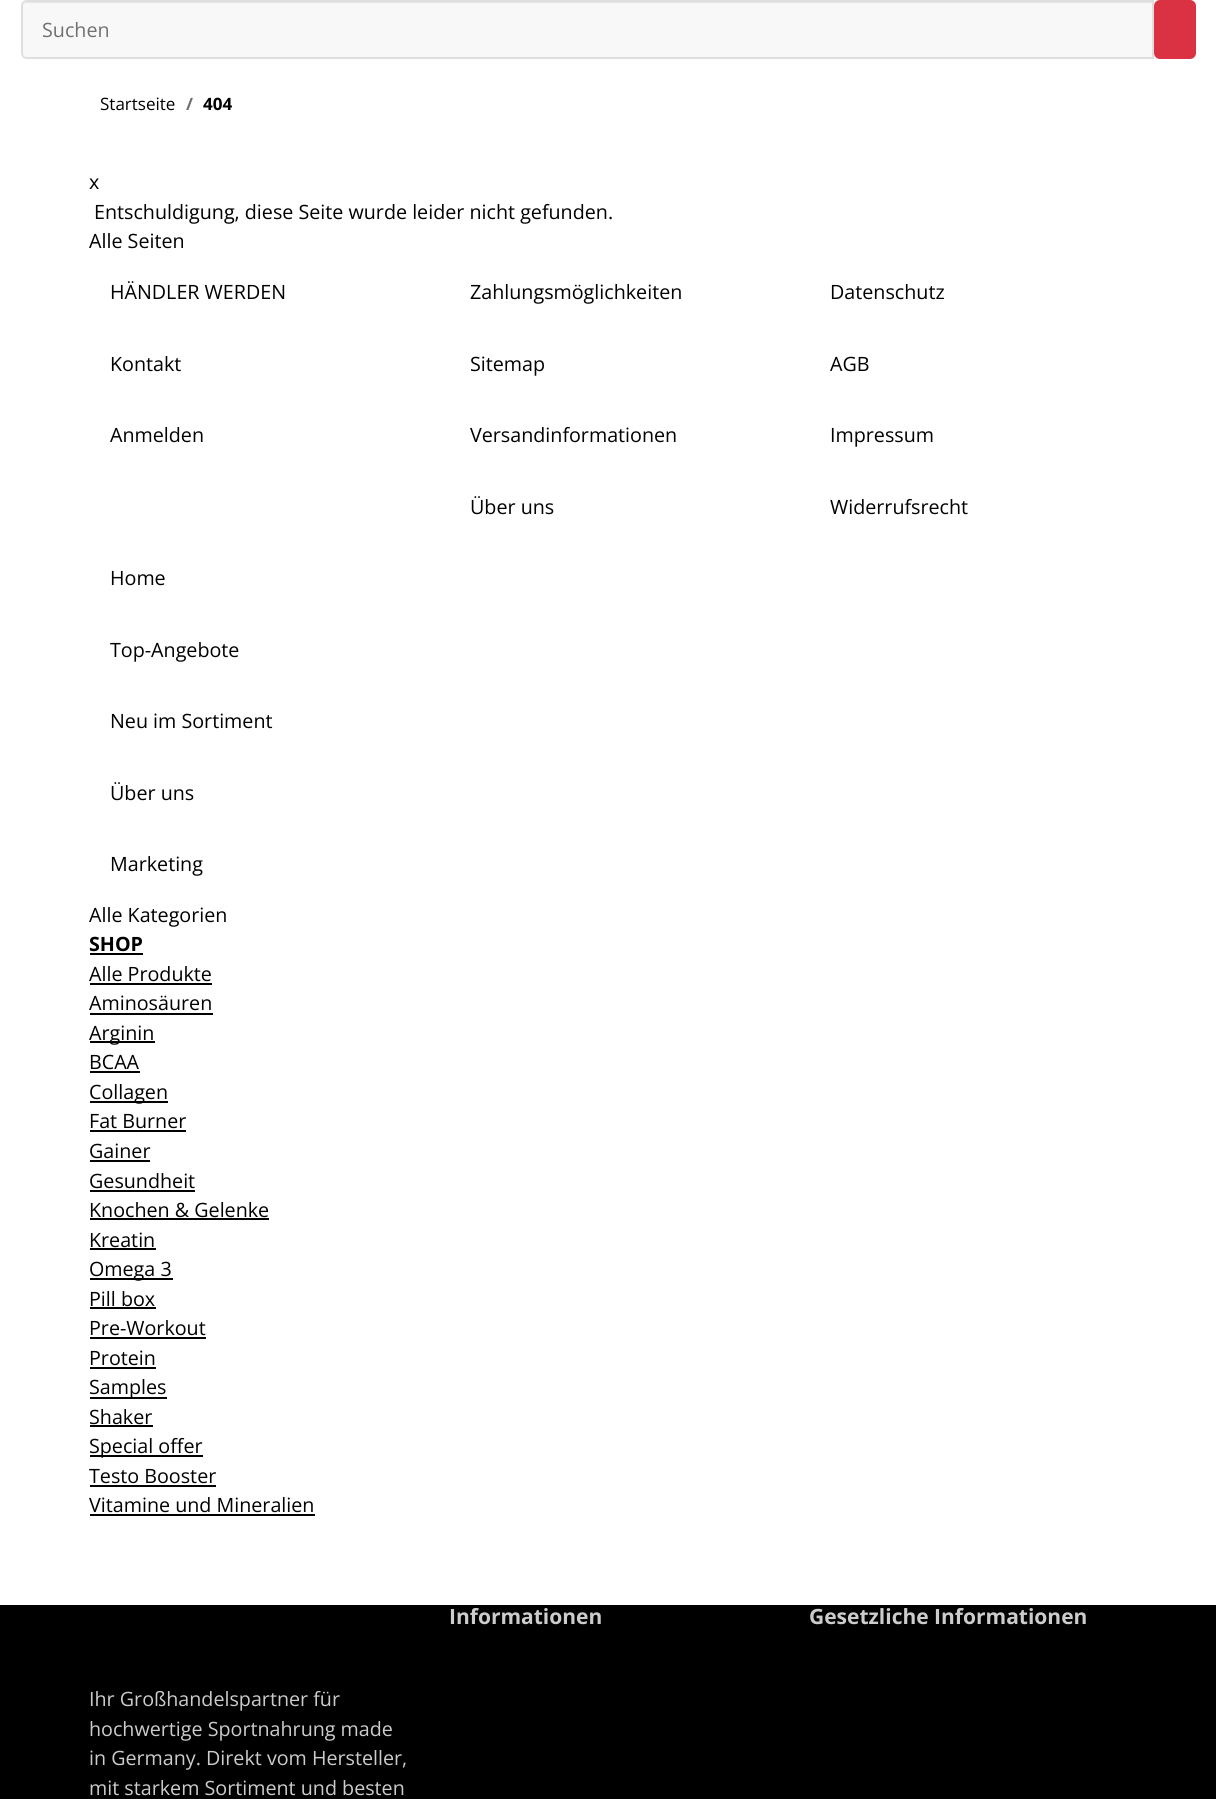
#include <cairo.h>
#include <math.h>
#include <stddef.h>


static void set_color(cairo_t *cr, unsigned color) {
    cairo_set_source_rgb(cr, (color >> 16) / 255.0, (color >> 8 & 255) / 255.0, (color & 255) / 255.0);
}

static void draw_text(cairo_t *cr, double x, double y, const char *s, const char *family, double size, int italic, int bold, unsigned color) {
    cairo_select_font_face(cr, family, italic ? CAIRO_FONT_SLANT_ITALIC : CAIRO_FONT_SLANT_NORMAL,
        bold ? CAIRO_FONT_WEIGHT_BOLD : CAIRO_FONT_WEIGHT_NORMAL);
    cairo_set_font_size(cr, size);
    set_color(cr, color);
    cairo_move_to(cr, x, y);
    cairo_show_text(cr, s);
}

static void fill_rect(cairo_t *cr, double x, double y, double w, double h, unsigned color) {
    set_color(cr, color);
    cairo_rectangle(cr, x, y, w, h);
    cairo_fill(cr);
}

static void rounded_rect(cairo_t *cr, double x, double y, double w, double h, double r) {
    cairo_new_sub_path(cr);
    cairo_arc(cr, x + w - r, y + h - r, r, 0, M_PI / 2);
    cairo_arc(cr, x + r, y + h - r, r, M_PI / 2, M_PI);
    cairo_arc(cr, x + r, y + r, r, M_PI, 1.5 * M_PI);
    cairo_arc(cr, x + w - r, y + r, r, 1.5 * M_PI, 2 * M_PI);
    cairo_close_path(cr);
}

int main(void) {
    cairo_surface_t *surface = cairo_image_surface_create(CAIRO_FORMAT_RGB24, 1216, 1799);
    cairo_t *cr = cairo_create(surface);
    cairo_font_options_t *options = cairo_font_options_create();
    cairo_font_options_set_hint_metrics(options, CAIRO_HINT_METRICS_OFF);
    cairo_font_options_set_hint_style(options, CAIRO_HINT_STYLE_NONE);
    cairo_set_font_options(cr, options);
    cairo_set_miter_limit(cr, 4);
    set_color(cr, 0xFFFFFF);
    cairo_paint(cr);
    set_color(cr, 0xF8F8F8);
    cairo_new_path(cr);
    cairo_move_to(cr, 27, 2);
    cairo_line_to(cr, 1152, 2);
    cairo_line_to(cr, 1152, 57);
    cairo_line_to(cr, 27, 57);
    cairo_curve_to(cr, 25, 57, 23, 55, 23, 53);
    cairo_line_to(cr, 23, 6);
    cairo_curve_to(cr, 23, 4, 25, 2, 27, 2);
    cairo_close_path(cr);
    cairo_fill(cr);
    set_color(cr, 0xE5E5E5);
    cairo_new_path(cr);
    cairo_move_to(cr, 26, 3);
    cairo_line_to(cr, 1152, 3);
    cairo_line_to(cr, 1152, 2);
    cairo_line_to(cr, 27, 2);
    cairo_curve_to(cr, 26, 2, 24, 3, 24, 4);
    cairo_close_path(cr);
    cairo_fill(cr);
    cairo_new_path(cr);
    cairo_move_to(cr, 27, 1);
    cairo_line_to(cr, 1153, 1);
    cairo_line_to(cr, 1153, 58);
    cairo_line_to(cr, 27, 58);
    cairo_curve_to(cr, 24, 58, 22, 56, 22, 53);
    cairo_line_to(cr, 22, 6);
    cairo_curve_to(cr, 22, 3, 24, 1, 27, 1);
    cairo_close_path(cr);
    set_color(cr, 0xDFDFDF);
    cairo_stroke(cr);
    draw_text(cr, 42, 37, "Suchen", "Open Sans", 19.7, 0, 0, 0x707070);
    set_color(cr, 0xDA3242);
    rounded_rect(cr, 1155, 1, 40, 57, 5);
    cairo_fill_preserve(cr);
    cairo_stroke(cr);
    draw_text(cr, 100, 110, "Startseite", "Open Sans", 17, 0, 0, 0x000000);
    draw_text(cr, 186, 110, "/", "Open Sans", 17, 0, 1, 0x707070);
    draw_text(cr, 203, 110, "404", "Open Sans", 17, 0, 1, 0x000000);
    draw_text(cr, 89, 189, "x", "Open Sans", 19.7, 0, 0, 0x000000);
    draw_text(cr, 94, 219, "Entschuldigung, diese Seite wurde leider nicht gefunden.", "Open Sans", 19.7, 0, 0, 0x000000);
    draw_text(cr, 89, 248, "Alle Seiten", "Open Sans", 19.7, 0, 0, 0x000000);
    draw_text(cr, 110, 299, "HÄNDLER WERDEN", "Open Sans", 19.7, 0, 0, 0x000000);
    draw_text(cr, 110, 371, "Kontakt", "Open Sans", 19.7, 0, 0, 0x000000);
    draw_text(cr, 110, 442, "Anmelden", "Open Sans", 19.7, 0, 0, 0x000000);
    draw_text(cr, 470, 299, "Zahlungsmöglichkeiten", "Open Sans", 19.7, 0, 0, 0x000000);
    draw_text(cr, 470, 371, "Sitemap", "Open Sans", 19.7, 0, 0, 0x000000);
    draw_text(cr, 470, 442, "Versandinformationen", "Open Sans", 19.7, 0, 0, 0x000000);
    draw_text(cr, 470, 514, "Über uns", "Open Sans", 19.7, 0, 0, 0x000000);
    draw_text(cr, 830, 299, "Datenschutz", "Open Sans", 19.7, 0, 0, 0x000000);
    draw_text(cr, 830, 371, "AGB", "Open Sans", 19.7, 0, 0, 0x000000);
    draw_text(cr, 830, 442, "Impressum", "Open Sans", 19.7, 0, 0, 0x000000);
    draw_text(cr, 830, 514, "Widerrufsrecht", "Open Sans", 19.7, 0, 0, 0x000000);
    draw_text(cr, 110, 585, "Home", "Open Sans", 19.7, 0, 0, 0x000000);
    draw_text(cr, 110, 657, "Top-Angebote", "Open Sans", 19.7, 0, 0, 0x000000);
    draw_text(cr, 110, 728, "Neu im Sortiment", "Open Sans", 19.7, 0, 0, 0x000000);
    draw_text(cr, 110, 800, "Über uns", "Open Sans", 19.7, 0, 0, 0x000000);
    draw_text(cr, 110, 871, "Marketing", "Open Sans", 19.7, 0, 0, 0x000000);
    draw_text(cr, 89, 922, "Alle Kategorien", "Open Sans", 19.7, 0, 0, 0x000000);
    draw_text(cr, 89, 951, "SHOP", "Open Sans", 19.7, 0, 1, 0x000000);
    fill_rect(cr, 90, 953, 53, 2, 0x000000);
    draw_text(cr, 89, 981, "Alle Produkte", "Open Sans", 19.7, 0, 0, 0x000000);
    fill_rect(cr, 90, 983, 122, 2, 0x000000);
    draw_text(cr, 89, 1010, "Aminosäuren", "Open Sans", 19.7, 0, 0, 0x000000);
    fill_rect(cr, 90, 1013, 123, 2, 0x000000);
    fill_rect(cr, 90, 1041, 65, 2, 0x000000);
    draw_text(cr, 89, 1040, "Arginin", "Open Sans", 19.7, 0, 0, 0x000000);
    draw_text(cr, 89, 1069, "BCAA", "Open Sans", 19.7, 0, 0, 0x000000);
    fill_rect(cr, 90, 1071, 50, 2, 0x000000);
    fill_rect(cr, 90, 1101, 78, 2, 0x000000);
    draw_text(cr, 89, 1099, "Collagen", "Open Sans", 19.7, 0, 0, 0x000000);
    draw_text(cr, 89, 1128, "Fat Burner", "Open Sans", 19.7, 0, 0, 0x000000);
    fill_rect(cr, 90, 1130, 96, 2, 0x000000);
    draw_text(cr, 89, 1158, "Gainer", "Open Sans", 19.7, 0, 0, 0x000000);
    fill_rect(cr, 90, 1160, 60, 2, 0x000000);
    draw_text(cr, 89, 1188, "Gesundheit", "Open Sans", 19.7, 0, 0, 0x000000);
    fill_rect(cr, 90, 1190, 105, 2, 0x000000);
    draw_text(cr, 89, 1217, "Knochen & Gelenke", "Open Sans", 19.7, 0, 0, 0x000000);
    fill_rect(cr, 90, 1218, 179, 2, 0x000000);
    draw_text(cr, 89, 1247, "Kreatin", "Open Sans", 19.7, 0, 0, 0x000000);
    fill_rect(cr, 90, 1248, 66, 2, 0x000000);
    fill_rect(cr, 90, 1278, 83, 2, 0x000000);
    draw_text(cr, 89, 1276, "Omega 3", "Open Sans", 19.7, 0, 0, 0x000000);
    draw_text(cr, 89, 1306, "Pill box", "Open Sans", 19.7, 0, 0, 0x000000);
    fill_rect(cr, 90, 1307, 66, 2, 0x000000);
    draw_text(cr, 89, 1335, "Pre-Workout", "Open Sans", 19.7, 0, 0, 0x000000);
    fill_rect(cr, 90, 1337, 116, 2, 0x000000);
    draw_text(cr, 89, 1365, "Protein", "Open Sans", 19.7, 0, 0, 0x000000);
    fill_rect(cr, 90, 1367, 66, 2, 0x000000);
    fill_rect(cr, 90, 1397, 77, 2, 0x000000);
    draw_text(cr, 89, 1394, "Samples", "Open Sans", 19.7, 0, 0, 0x000000);
    draw_text(cr, 89, 1424, "Shaker", "Open Sans", 19.7, 0, 0, 0x000000);
    fill_rect(cr, 90, 1425, 63, 2, 0x000000);
    fill_rect(cr, 90, 1455, 113, 2, 0x000000);
    draw_text(cr, 89, 1453, "Special offer", "Open Sans", 19.7, 0, 0, 0x000000);
    draw_text(cr, 89, 1483, "Testo Booster", "Open Sans", 19.7, 0, 0, 0x000000);
    fill_rect(cr, 90, 1485, 126, 2, 0x000000);
    draw_text(cr, 89, 1512, "Vitamine und Mineralien", "Open Sans", 19.7, 0, 0, 0x000000);
    fill_rect(cr, 90, 1514, 225, 2, 0x000000);
    fill_rect(cr, 0, 1605, 1216, 194, 0x000000);
    draw_text(cr, 449, 1624, "Informationen", "Open Sans", 21, 0, 1, 0xCCCCCC);
    draw_text(cr, 809, 1624, "Gesetzliche Informationen", "Open Sans", 21, 0, 1, 0xCCCCCC);
    draw_text(cr, 89, 1706, "Ihr Großhandelspartner für", "Open Sans", 19.7, 0, 0, 0xCCCCCC);
    draw_text(cr, 89, 1736, "hochwertige Sportnahrung made", "Open Sans", 19.7, 0, 0, 0xCCCCCC);
    draw_text(cr, 89, 1765, "in Germany. Direkt vom Hersteller,", "Open Sans", 19.7, 0, 0, 0xCCCCCC);
    draw_text(cr, 89, 1795, "mit starkem Sortiment und besten", "Open Sans", 19.7, 0, 0, 0xCCCCCC);
    cairo_surface_write_to_png(surface, "output.png");
    cairo_font_options_destroy(options);
    cairo_destroy(cr);
    cairo_surface_destroy(surface);
    return 0;
}
